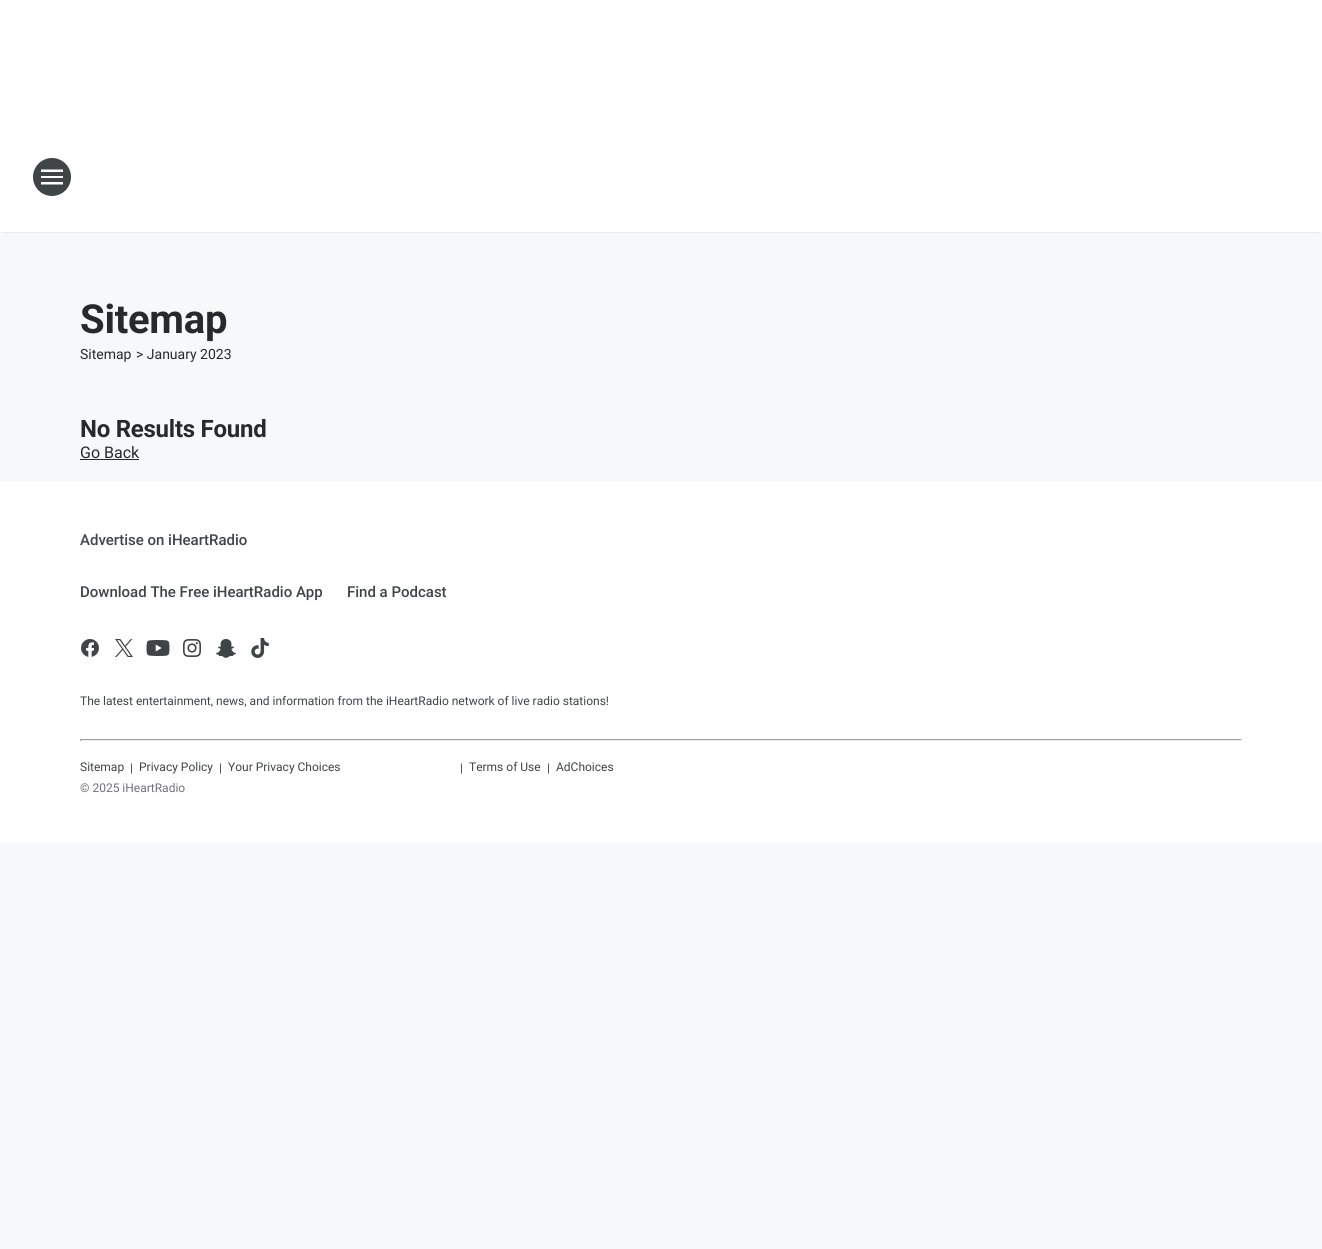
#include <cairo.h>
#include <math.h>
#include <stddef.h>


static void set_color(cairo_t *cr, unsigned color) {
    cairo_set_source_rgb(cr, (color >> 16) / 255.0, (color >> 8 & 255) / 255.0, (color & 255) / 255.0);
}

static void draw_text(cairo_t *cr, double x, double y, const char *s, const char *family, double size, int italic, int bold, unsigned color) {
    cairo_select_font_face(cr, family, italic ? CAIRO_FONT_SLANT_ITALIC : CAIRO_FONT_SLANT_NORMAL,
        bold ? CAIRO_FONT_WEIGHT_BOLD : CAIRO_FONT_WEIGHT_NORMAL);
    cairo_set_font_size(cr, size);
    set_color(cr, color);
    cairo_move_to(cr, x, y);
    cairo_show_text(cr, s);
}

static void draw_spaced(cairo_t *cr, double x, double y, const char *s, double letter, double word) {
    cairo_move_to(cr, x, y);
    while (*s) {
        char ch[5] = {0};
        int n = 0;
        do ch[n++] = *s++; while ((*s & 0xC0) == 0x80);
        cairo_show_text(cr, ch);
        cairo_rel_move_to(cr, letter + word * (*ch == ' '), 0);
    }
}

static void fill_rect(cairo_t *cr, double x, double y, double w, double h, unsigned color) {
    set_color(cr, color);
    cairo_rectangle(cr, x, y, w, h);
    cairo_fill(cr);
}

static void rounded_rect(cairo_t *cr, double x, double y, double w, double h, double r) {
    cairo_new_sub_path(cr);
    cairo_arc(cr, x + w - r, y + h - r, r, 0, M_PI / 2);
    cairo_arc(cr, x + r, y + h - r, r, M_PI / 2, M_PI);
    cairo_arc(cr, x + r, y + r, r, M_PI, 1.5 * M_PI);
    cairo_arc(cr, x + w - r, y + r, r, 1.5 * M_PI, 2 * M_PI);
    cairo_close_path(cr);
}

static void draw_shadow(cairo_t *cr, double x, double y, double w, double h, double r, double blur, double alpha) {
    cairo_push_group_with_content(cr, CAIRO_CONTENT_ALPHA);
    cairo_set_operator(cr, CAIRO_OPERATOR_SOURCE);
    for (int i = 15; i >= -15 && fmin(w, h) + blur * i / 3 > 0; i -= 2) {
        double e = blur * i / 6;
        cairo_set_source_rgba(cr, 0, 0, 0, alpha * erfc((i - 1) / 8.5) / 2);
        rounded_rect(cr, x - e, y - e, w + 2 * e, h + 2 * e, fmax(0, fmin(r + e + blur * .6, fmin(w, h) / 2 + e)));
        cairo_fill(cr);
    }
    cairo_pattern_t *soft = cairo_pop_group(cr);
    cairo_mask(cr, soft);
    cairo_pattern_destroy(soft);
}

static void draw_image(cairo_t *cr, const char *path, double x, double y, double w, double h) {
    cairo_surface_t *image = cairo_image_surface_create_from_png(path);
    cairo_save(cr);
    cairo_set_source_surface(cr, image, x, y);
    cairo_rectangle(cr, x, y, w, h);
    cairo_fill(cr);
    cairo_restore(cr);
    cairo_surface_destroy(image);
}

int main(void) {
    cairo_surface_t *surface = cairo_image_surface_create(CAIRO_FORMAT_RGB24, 1322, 1249);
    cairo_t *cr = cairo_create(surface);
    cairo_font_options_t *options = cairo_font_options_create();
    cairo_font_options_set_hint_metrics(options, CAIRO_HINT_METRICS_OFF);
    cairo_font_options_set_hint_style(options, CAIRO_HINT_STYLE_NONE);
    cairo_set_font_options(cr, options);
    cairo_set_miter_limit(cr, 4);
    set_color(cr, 0xF6F8F9);
    cairo_paint(cr);
    fill_rect(cr, 0, 0, 1322, 122, 0xFFFFFF);
    set_color(cr, 0x000000);
    draw_shadow(cr, 3, 126, 1316, 104, 0, 1.5, 1);
    fill_rect(cr, 0, 122, 1322, 110, 0xFFFFFF);
    set_color(cr, 0x3F4447);
    cairo_arc(cr, 52, 177, 19, 0, 2 * M_PI);
    cairo_fill(cr);
    set_color(cr, 0xFFFFFF);
    cairo_set_fill_rule(cr, CAIRO_FILL_RULE_EVEN_ODD);
    cairo_new_path(cr);
    cairo_move_to(cr, 41, 184.5);
    cairo_line_to(cr, 63, 184.5);
    cairo_line_to(cr, 63, 182);
    cairo_line_to(cr, 41, 182);
    cairo_close_path(cr);
    cairo_move_to(cr, 41, 178);
    cairo_line_to(cr, 63, 178);
    cairo_line_to(cr, 63, 176);
    cairo_line_to(cr, 41, 176);
    cairo_close_path(cr);
    cairo_move_to(cr, 41, 169.5);
    cairo_line_to(cr, 41, 172);
    cairo_line_to(cr, 63, 172);
    cairo_line_to(cr, 63, 169.5);
    cairo_close_path(cr);
    cairo_fill(cr);
    cairo_select_font_face(cr, "Roboto", CAIRO_FONT_SLANT_NORMAL, CAIRO_FONT_WEIGHT_BOLD);
    cairo_set_font_size(cr, 40);
    set_color(cr, 0x27292D);
    draw_spaced(cr, 80, 333, "Sitemap", -0.25, 0);
    draw_text(cr, 80, 359, "Sitemap", "Roboto", 14, 0, 0, 0x27292D);
    draw_text(cr, 136, 359, "> January 2023", "Roboto", 14, 0, 0, 0x27292D);
    cairo_select_font_face(cr, "Roboto", CAIRO_FONT_SLANT_NORMAL, CAIRO_FONT_WEIGHT_BOLD);
    cairo_set_font_size(cr, 24);
    draw_spaced(cr, 80, 437, "No Results Found", -0.25, 0);
    draw_text(cr, 80, 458, "Go Back", "Roboto", 16, 0, 0, 0x27292D);
    fill_rect(cr, 80, 459, 59, 1, 0x27292D);
    fill_rect(cr, 0, 482, 1322, 361, 0xFFFFFF);
    draw_text(cr, 80, 545, "Advertise on iHeartRadio", "Roboto Medium", 15, 0, 0, 0x3F4447);
    draw_text(cr, 80, 597, "Download The Free iHeartRadio App", "Roboto Medium", 15, 0, 0, 0x3F4447);
    draw_text(cr, 347, 597, "Find a Podcast", "Roboto Medium", 15, 0, 0, 0x3F4447);
    draw_image(cr, "assets/img1.png", 81, 639, 18, 18);
    draw_image(cr, "assets/img2.png", 115, 639, 18, 18);
    draw_image(cr, "assets/img3.png", 146, 640, 24, 16);
    draw_image(cr, "assets/img4.png", 183, 639, 18, 18);
    draw_image(cr, "assets/img5.png", 216, 639, 20, 19);
    draw_image(cr, "assets/img6.png", 251, 638, 18, 20);
    draw_text(cr, 80, 705, "The latest entertainment, news, and information from the iHeartRadio network of live radio stations!", "Roboto", 12, 0, 0, 0x3F4447);
    fill_rect(cr, 80, 739, 1162, 1, 0x9F9F9F);
    fill_rect(cr, 1241, 739, 1, 2, 0xEEEEEE);
    fill_rect(cr, 80, 740, 1162, 1, 0xEEEEEE);
    fill_rect(cr, 80, 739, 1, 2, 0x9F9F9F);
    draw_text(cr, 80, 771, "Sitemap", "Roboto", 12, 0, 0, 0x3F4447);
    draw_text(cr, 130, 772, "|", "Roboto", 12, 0, 0, 0x3F4447);
    draw_text(cr, 139, 771, "Privacy Policy", "Roboto", 12, 0, 0, 0x3F4447);
    draw_text(cr, 219, 772, "|", "Roboto", 12, 0, 0, 0x3F4447);
    draw_text(cr, 228, 771, "Your Privacy Choices", "Roboto", 12, 0, 0, 0x3F4447);
    draw_text(cr, 460, 772, "|", "Roboto", 12, 0, 0, 0x3F4447);
    draw_text(cr, 469, 771, "Terms of Use", "Roboto", 12, 0, 0, 0x3F4447);
    draw_text(cr, 547, 772, "|", "Roboto", 12, 0, 0, 0x3F4447);
    draw_text(cr, 556, 771, "AdChoices", "Roboto", 12, 0, 0, 0x3F4447);
    draw_text(cr, 80, 792, "© 2025 iHeartRadio", "Roboto", 12, 0, 0, 0x717277);
    cairo_surface_write_to_png(surface, "output.png");
    cairo_font_options_destroy(options);
    cairo_destroy(cr);
    cairo_surface_destroy(surface);
    return 0;
}
